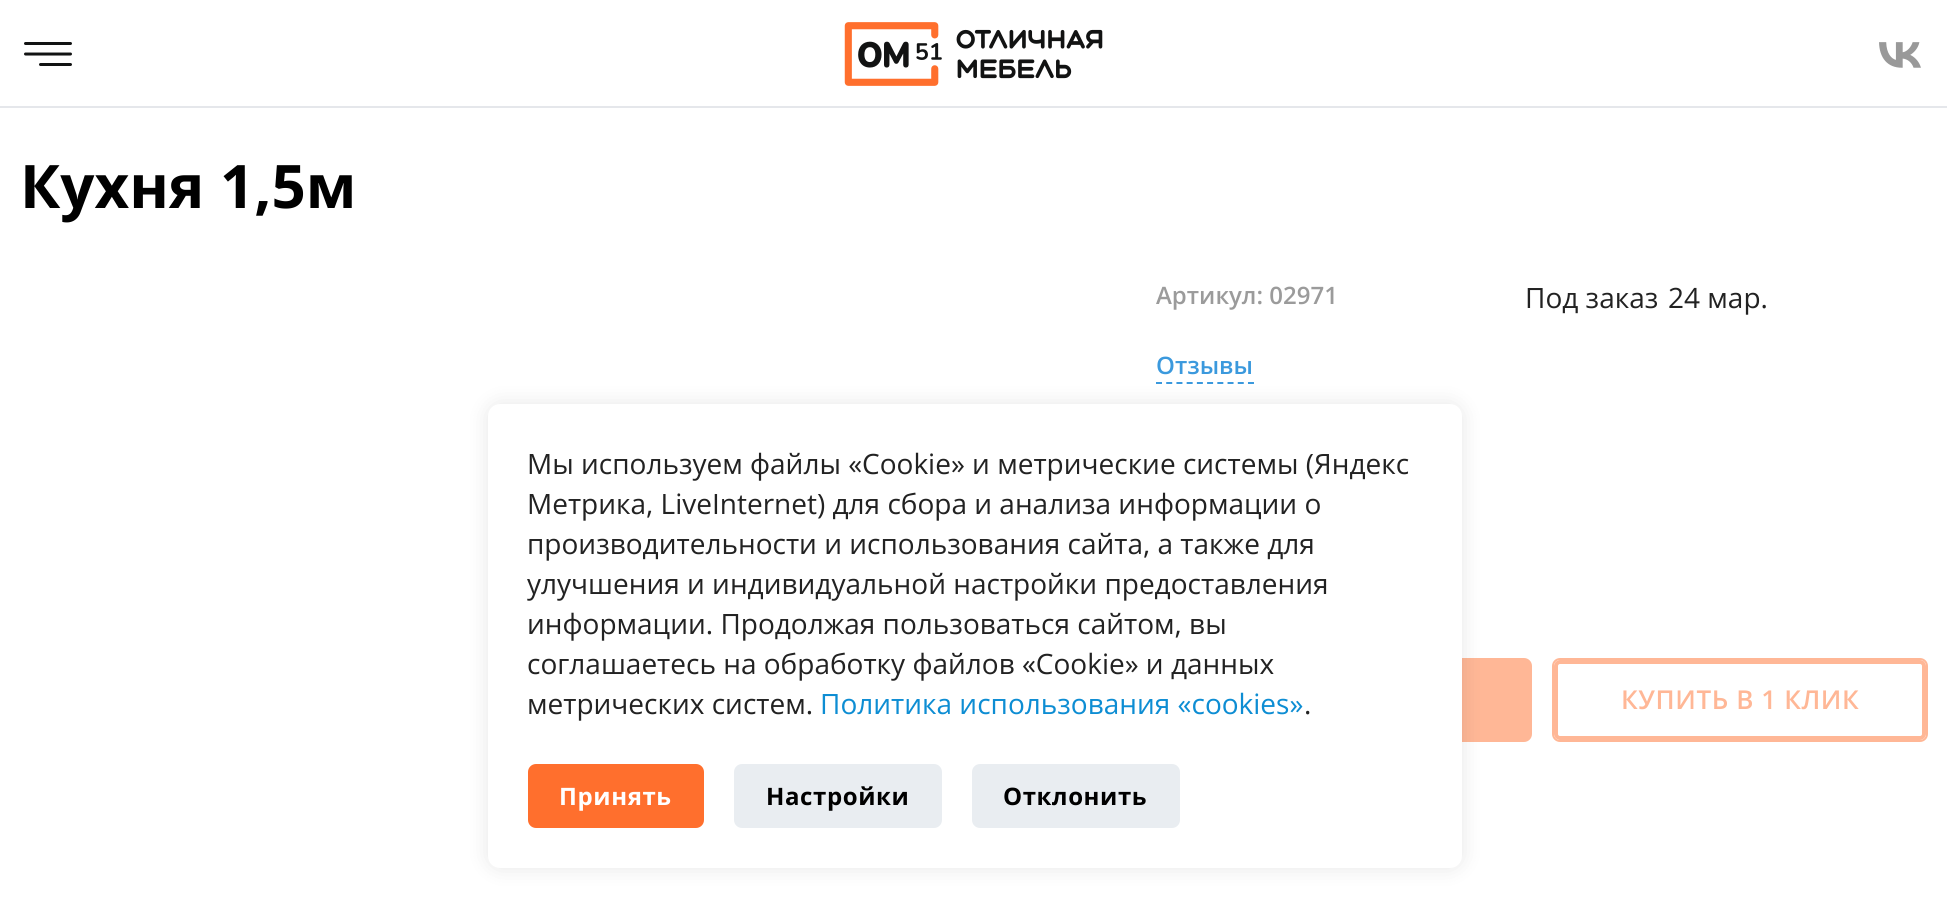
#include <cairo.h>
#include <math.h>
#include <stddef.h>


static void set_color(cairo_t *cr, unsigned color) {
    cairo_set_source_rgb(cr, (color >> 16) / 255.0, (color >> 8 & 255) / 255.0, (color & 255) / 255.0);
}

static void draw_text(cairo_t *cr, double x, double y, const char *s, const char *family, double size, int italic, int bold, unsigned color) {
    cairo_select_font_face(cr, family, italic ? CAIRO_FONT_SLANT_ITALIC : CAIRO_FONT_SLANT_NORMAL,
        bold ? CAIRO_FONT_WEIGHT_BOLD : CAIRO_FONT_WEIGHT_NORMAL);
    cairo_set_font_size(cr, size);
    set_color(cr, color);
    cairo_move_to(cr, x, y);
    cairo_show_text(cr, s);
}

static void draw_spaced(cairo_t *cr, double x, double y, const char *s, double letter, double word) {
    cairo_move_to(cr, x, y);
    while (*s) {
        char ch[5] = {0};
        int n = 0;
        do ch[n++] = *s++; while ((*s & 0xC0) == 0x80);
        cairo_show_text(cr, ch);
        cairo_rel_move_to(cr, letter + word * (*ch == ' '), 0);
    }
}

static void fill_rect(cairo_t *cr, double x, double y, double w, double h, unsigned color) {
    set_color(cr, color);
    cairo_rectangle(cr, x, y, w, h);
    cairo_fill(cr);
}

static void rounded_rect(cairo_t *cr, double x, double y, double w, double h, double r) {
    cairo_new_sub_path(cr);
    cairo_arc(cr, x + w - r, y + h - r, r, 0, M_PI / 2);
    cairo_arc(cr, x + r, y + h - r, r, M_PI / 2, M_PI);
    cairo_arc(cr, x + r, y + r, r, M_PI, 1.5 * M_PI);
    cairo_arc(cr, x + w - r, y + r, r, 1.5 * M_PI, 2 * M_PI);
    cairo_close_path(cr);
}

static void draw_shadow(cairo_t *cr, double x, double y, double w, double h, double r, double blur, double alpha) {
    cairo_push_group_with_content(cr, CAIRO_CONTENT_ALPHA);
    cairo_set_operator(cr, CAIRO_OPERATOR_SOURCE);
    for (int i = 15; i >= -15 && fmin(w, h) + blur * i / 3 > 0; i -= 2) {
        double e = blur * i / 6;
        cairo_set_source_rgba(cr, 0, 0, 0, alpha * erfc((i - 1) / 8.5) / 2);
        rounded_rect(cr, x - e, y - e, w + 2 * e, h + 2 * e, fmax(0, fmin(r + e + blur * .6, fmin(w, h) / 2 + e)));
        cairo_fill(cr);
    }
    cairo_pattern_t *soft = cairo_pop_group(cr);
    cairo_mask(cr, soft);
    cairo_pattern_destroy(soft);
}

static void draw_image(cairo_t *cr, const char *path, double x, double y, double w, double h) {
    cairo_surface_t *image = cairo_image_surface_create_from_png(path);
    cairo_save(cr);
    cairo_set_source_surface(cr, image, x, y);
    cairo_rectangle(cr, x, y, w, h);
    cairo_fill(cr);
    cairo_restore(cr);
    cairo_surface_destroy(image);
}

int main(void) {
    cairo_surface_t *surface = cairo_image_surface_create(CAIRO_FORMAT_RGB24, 1947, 907);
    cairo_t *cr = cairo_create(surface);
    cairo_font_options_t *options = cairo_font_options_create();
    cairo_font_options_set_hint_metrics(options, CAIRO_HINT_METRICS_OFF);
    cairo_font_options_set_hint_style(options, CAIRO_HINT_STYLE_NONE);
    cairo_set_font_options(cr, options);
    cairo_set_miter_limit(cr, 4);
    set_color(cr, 0xFFFFFF);
    cairo_paint(cr);
    fill_rect(cr, 0, 106, 1947, 2, 0xE5E7EB);
    draw_image(cr, "assets/img1.png", 24, 42, 48, 24);
    draw_image(cr, "assets/img2.png", 844, 22, 259, 64);
    draw_image(cr, "assets/img3.png", 1879, 42, 42, 26);
    draw_text(cr, 20, 208, "Кухня 1,5м", "Open Sans", 60, 0, 1, 0x000000);
    draw_text(cr, 1156, 304, "Артикул: 02971", "Open Sans SemiBold", 24, 0, 0, 0x9B9B9B);
    draw_text(cr, 1525, 308, "Под заказ", "Open Sans", 28, 0, 0, 0x222222);
    draw_text(cr, 1668, 308, "24 мар.", "Open Sans", 28, 0, 0, 0x222222);
    draw_text(cr, 1156, 374, "Отзывы", "Open Sans SemiBold", 24, 0, 0, 0x3B99DD);
    cairo_new_path(cr);
    cairo_move_to(cr, 1156, 383);
    cairo_line_to(cr, 1254, 383);
    cairo_set_dash(cr, (double[]){6, 4.22}, 2, 0);
    cairo_stroke(cr);
    set_color(cr, 0xFFB796);
    rounded_rect(cr, 1157, 659, 374, 82, 7);
    cairo_fill_preserve(cr);
    cairo_set_dash(cr, NULL, 0, 0);
    cairo_stroke(cr);
    rounded_rect(cr, 1553, 659, 374, 82, 7);
    cairo_stroke(cr);
    rounded_rect(cr, 1556, 662, 368, 76, 4);
    cairo_set_line_width(cr, 4);
    cairo_stroke(cr);
    cairo_set_font_size(cr, 26);
    draw_spaced(cr, 1621, 709, "КУПИТЬ В 1 КЛИК", 0.6, 0);
    set_color(cr, 0x000000);
    draw_shadow(cr, 488, 404, 974, 464, 12, 10, 0.1);
    set_color(cr, 0xFFFFFF);
    rounded_rect(cr, 488, 404, 974, 464, 12);
    cairo_fill(cr);
    draw_text(cr, 527, 474, "Мы используем файлы «Cookie» и метрические системы (Яндекс", "Open Sans", 28, 0, 0, 0x222222);
    draw_text(cr, 527, 514, "Метрика, LiveInternet) для сбора и анализа информации о", "Open Sans", 28, 0, 0, 0x222222);
    draw_text(cr, 527, 554, "производительности и использования сайта, а также для", "Open Sans", 28, 0, 0, 0x222222);
    draw_text(cr, 527, 594, "улучшения и индивидуальной настройки предоставления", "Open Sans", 28, 0, 0, 0x222222);
    draw_text(cr, 527, 634, "информации. Продолжая пользоваться сайтом, вы", "Open Sans", 28, 0, 0, 0x222222);
    draw_text(cr, 527, 674, "соглашаетесь на обработку файлов «Cookie» и данных", "Open Sans", 28, 0, 0, 0x222222);
    draw_text(cr, 527, 714, "метрических систем.", "Open Sans", 28, 0, 0, 0x222222);
    draw_text(cr, 820, 714, "Политика использования «cookies»", "Open Sans", 28, 0, 0, 0x0D8DD3);
    draw_text(cr, 1304, 714, ".", "Open Sans", 28, 0, 0, 0x222222);
    set_color(cr, 0xFF6F2D);
    rounded_rect(cr, 529, 765, 174, 62, 7);
    cairo_fill_preserve(cr);
    cairo_set_line_width(cr, 2);
    cairo_stroke(cr);
    cairo_select_font_face(cr, "Open Sans", CAIRO_FONT_SLANT_NORMAL, CAIRO_FONT_WEIGHT_BOLD);
    cairo_set_font_size(cr, 24);
    set_color(cr, 0xFFFFFF);
    draw_spaced(cr, 559, 805, "Принять", 0.6, 0);
    set_color(cr, 0xE9EDF1);
    rounded_rect(cr, 735, 765, 206, 62, 7);
    cairo_fill_preserve(cr);
    cairo_stroke(cr);
    set_color(cr, 0x000000);
    draw_spaced(cr, 766, 805, "Настройки", 0.6, 0);
    set_color(cr, 0xE9EDF1);
    rounded_rect(cr, 973, 765, 206, 62, 7);
    cairo_fill_preserve(cr);
    cairo_stroke(cr);
    set_color(cr, 0x000000);
    draw_spaced(cr, 1003, 805, "Отклонить", 0.6, 0);
    cairo_surface_write_to_png(surface, "output.png");
    cairo_font_options_destroy(options);
    cairo_destroy(cr);
    cairo_surface_destroy(surface);
    return 0;
}
